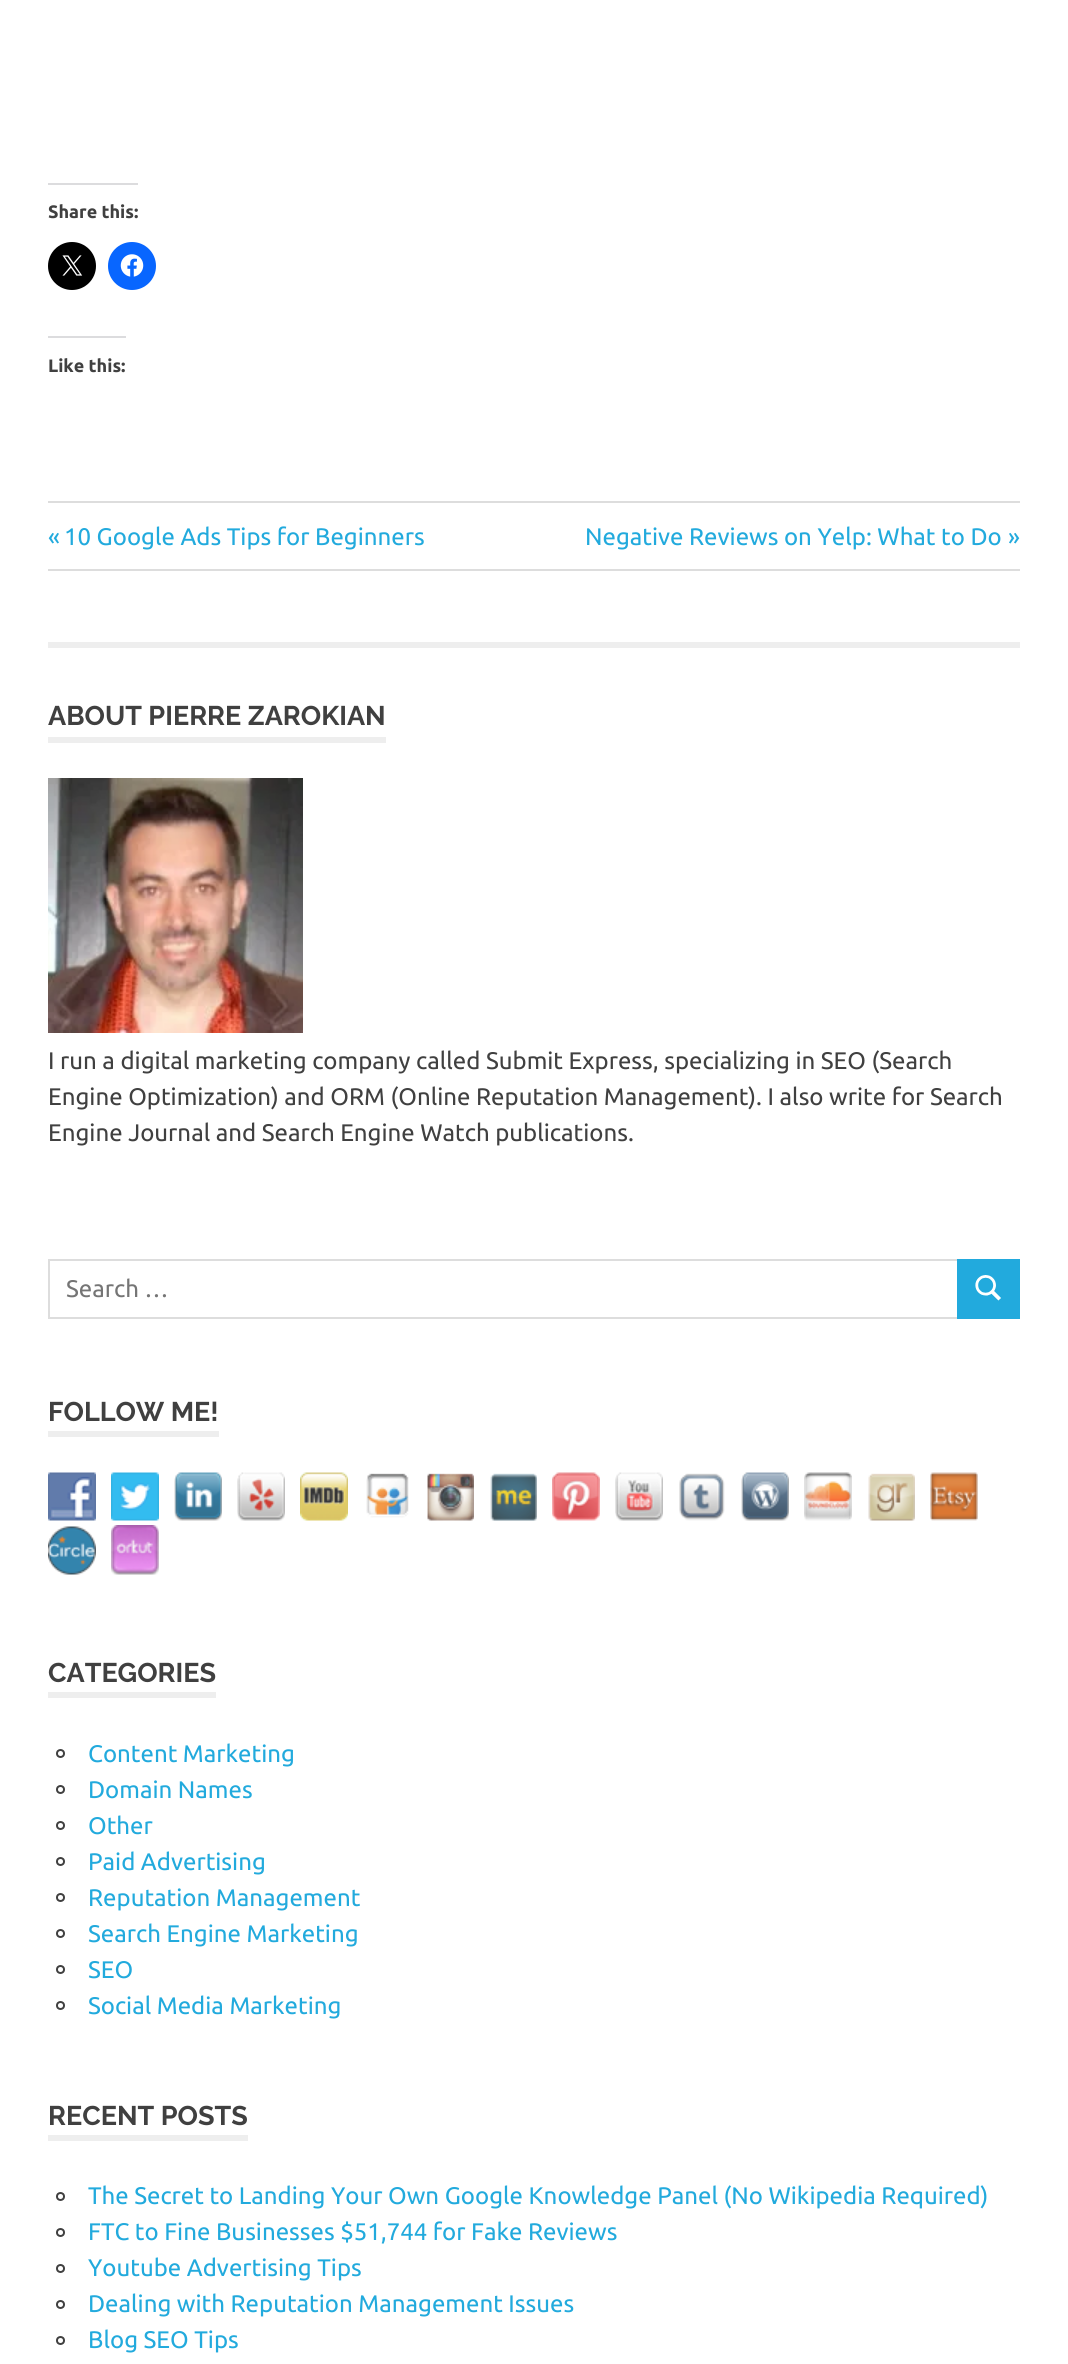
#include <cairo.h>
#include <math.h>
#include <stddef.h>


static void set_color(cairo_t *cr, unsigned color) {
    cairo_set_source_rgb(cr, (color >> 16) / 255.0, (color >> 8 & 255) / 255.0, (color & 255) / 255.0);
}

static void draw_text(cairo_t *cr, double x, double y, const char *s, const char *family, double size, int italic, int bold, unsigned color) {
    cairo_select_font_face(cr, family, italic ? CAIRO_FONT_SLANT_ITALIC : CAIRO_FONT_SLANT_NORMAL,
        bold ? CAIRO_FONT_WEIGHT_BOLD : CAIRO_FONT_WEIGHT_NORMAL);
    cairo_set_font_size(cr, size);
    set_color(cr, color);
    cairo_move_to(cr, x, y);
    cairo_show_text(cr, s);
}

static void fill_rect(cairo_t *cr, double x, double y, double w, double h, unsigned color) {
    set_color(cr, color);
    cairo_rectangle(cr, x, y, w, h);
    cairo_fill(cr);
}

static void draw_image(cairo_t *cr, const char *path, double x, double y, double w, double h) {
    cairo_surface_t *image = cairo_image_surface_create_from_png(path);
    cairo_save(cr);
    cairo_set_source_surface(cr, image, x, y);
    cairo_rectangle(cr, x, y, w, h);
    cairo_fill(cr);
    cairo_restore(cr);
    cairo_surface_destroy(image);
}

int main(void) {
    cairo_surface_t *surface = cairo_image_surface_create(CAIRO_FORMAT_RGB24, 1068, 2364);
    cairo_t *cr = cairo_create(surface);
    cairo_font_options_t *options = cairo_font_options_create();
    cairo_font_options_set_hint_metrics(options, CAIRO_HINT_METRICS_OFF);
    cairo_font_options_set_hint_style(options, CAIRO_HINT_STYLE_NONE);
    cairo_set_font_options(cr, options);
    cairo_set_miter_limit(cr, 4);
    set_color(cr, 0xFFFFFF);
    cairo_paint(cr);
    fill_rect(cr, 48, 183, 90, 2, 0xDCDCDE);
    draw_text(cr, 48, 218, "Share this:", "Ubuntu", 18, 0, 1, 0x404040);
    set_color(cr, 0x000000);
    cairo_new_path(cr);
    cairo_arc(cr, 72, 266, 24, 0, 2 * M_PI);
    cairo_fill(cr);
    draw_image(cr, "assets/img1.png", 62, 255, 21, 21);
    set_color(cr, 0x0866FF);
    cairo_arc(cr, 132, 266, 24, 0, 2 * M_PI);
    cairo_fill(cr);
    draw_image(cr, "assets/img2.png", 120, 254, 24, 23);
    fill_rect(cr, 48, 336, 78, 2, 0xDCDCDE);
    draw_text(cr, 48, 372, "Like this:", "Ubuntu", 18, 0, 1, 0x404040);
    fill_rect(cr, 48, 501, 972, 2, 0xDDDDDD);
    fill_rect(cr, 48, 569, 972, 2, 0xDDDDDD);
    draw_text(cr, 48, 545, "«", "Ubuntu", 24, 0, 0, 0x22AADD);
    draw_text(cr, 64, 545, "10 Google Ads Tips for Beginners", "Ubuntu", 24, 0, 0, 0x22AADD);
    draw_text(cr, 585, 545, "Negative Reviews on Yelp: What to Do", "Ubuntu", 24, 0, 0, 0x22AADD);
    draw_text(cr, 1008, 545, "»", "Ubuntu", 24, 0, 0, 0x22AADD);
    fill_rect(cr, 48, 642, 972, 6, 0xEEEEEE);
    fill_rect(cr, 48, 737, 338, 6, 0xEEEEEE);
    draw_text(cr, 48, 725, "ABOUT PIERRE ZAROKIAN", "Raleway Thin", 27, 0, 0, 0x404040);
    draw_image(cr, "assets/img3.png", 48, 778, 255, 255);
    draw_text(cr, 48, 1069, "I run a digital marketing company called Submit Express, specializing in SEO (Search", "Ubuntu", 24, 0, 0, 0x404040);
    draw_text(cr, 48, 1105, "Engine Optimization) and ORM (Online Reputation Management). I also write for Search", "Ubuntu", 24, 0, 0, 0x404040);
    draw_text(cr, 48, 1141, "Engine Journal and Search Engine Watch publications.", "Ubuntu", 24, 0, 0, 0x404040);
    cairo_rectangle(cr, 49, 1260, 909, 58);
    set_color(cr, 0xDDDDDD);
    cairo_stroke(cr);
    draw_text(cr, 66, 1297, "Search …", "Ubuntu", 24, 0, 0, 0x757575);
    fill_rect(cr, 957, 1259, 63, 60, 0x22AADD);
    draw_image(cr, "assets/img4.png", 975, 1275, 26, 26);
    fill_rect(cr, 48, 1431, 171, 6, 0xEEEEEE);
    draw_text(cr, 48, 1421, "FOLLOW ME!", "Raleway Thin", 27, 0, 0, 0x404040);
    draw_image(cr, "assets/img5.png", 48, 1472, 48, 49);
    draw_image(cr, "assets/img6.png", 111, 1472, 48, 49);
    draw_image(cr, "assets/img7.png", 174, 1472, 48, 49);
    draw_image(cr, "assets/img8.png", 237, 1472, 48, 49);
    draw_image(cr, "assets/img9.png", 300, 1472, 48, 49);
    draw_image(cr, "assets/img10.png", 366, 1473, 43, 45);
    draw_image(cr, "assets/img11.png", 427, 1473, 47, 48);
    draw_image(cr, "assets/img12.png", 490, 1473, 47, 48);
    draw_image(cr, "assets/img13.png", 552, 1472, 48, 49);
    draw_image(cr, "assets/img14.png", 615, 1472, 48, 49);
    draw_image(cr, "assets/img15.png", 679, 1473, 46, 48);
    draw_image(cr, "assets/img16.png", 741, 1472, 48, 49);
    draw_image(cr, "assets/img17.png", 804, 1472, 48, 49);
    draw_image(cr, "assets/img18.png", 868, 1473, 47, 48);
    draw_image(cr, "assets/img19.png", 930, 1472, 48, 49);
    draw_image(cr, "assets/img20.png", 48, 1526, 48, 49);
    draw_image(cr, "assets/img21.png", 111, 1525, 48, 50);
    fill_rect(cr, 48, 1692, 168, 6, 0xEEEEEE);
    draw_text(cr, 48, 1682, "CATEGORIES", "Raleway Thin", 27, 0, 0, 0x404040);
    cairo_new_path(cr);
    cairo_arc(cr, 60.5, 1753.5, 3.5, 0, 2 * M_PI);
    cairo_stroke(cr);
    draw_text(cr, 88, 1762, "Content Marketing", "Ubuntu", 24, 0, 0, 0x22AADD);
    cairo_new_path(cr);
    cairo_arc(cr, 60.5, 1789.5, 3.5, 0, 2 * M_PI);
    set_color(cr, 0x404040);
    cairo_stroke(cr);
    draw_text(cr, 88, 1798, "Domain Names", "Ubuntu", 24, 0, 0, 0x22AADD);
    cairo_new_path(cr);
    cairo_arc(cr, 60.5, 1825.5, 3.5, 0, 2 * M_PI);
    set_color(cr, 0x404040);
    cairo_stroke(cr);
    draw_text(cr, 88, 1834, "Other", "Ubuntu", 24, 0, 0, 0x22AADD);
    cairo_new_path(cr);
    cairo_arc(cr, 60.5, 1861.5, 3.5, 0, 2 * M_PI);
    set_color(cr, 0x404040);
    cairo_stroke(cr);
    draw_text(cr, 88, 1870, "Paid Advertising", "Ubuntu", 24, 0, 0, 0x22AADD);
    cairo_new_path(cr);
    cairo_arc(cr, 60.5, 1897.5, 3.5, 0, 2 * M_PI);
    set_color(cr, 0x404040);
    cairo_stroke(cr);
    draw_text(cr, 88, 1906, "Reputation Management", "Ubuntu", 24, 0, 0, 0x22AADD);
    cairo_new_path(cr);
    cairo_arc(cr, 60.5, 1933.5, 3.5, 0, 2 * M_PI);
    set_color(cr, 0x404040);
    cairo_stroke(cr);
    draw_text(cr, 88, 1942, "Search Engine Marketing", "Ubuntu", 24, 0, 0, 0x22AADD);
    cairo_new_path(cr);
    cairo_arc(cr, 60.5, 1969.5, 3.5, 0, 2 * M_PI);
    set_color(cr, 0x404040);
    cairo_stroke(cr);
    draw_text(cr, 88, 1978, "SEO", "Ubuntu", 24, 0, 0, 0x22AADD);
    cairo_new_path(cr);
    cairo_arc(cr, 60.5, 2005.5, 3.5, 0, 2 * M_PI);
    set_color(cr, 0x404040);
    cairo_stroke(cr);
    draw_text(cr, 88, 2014, "Social Media Marketing", "Ubuntu", 24, 0, 0, 0x22AADD);
    fill_rect(cr, 48, 2135, 200, 6, 0xEEEEEE);
    draw_text(cr, 48, 2125, "RECENT POSTS", "Raleway Thin", 27, 0, 0, 0x404040);
    cairo_new_path(cr);
    cairo_arc(cr, 60.5, 2196.5, 3.5, 0, 2 * M_PI);
    cairo_stroke(cr);
    draw_text(cr, 88, 2204, "The Secret to Landing Your Own Google Knowledge Panel (No Wikipedia Required)", "Ubuntu", 24, 0, 0, 0x22AADD);
    cairo_new_path(cr);
    cairo_arc(cr, 60.5, 2232.5, 3.5, 0, 2 * M_PI);
    set_color(cr, 0x404040);
    cairo_stroke(cr);
    draw_text(cr, 88, 2240, "FTC to Fine Businesses $51,744 for Fake Reviews", "Ubuntu", 24, 0, 0, 0x22AADD);
    cairo_new_path(cr);
    cairo_arc(cr, 60.5, 2268.5, 3.5, 0, 2 * M_PI);
    set_color(cr, 0x404040);
    cairo_stroke(cr);
    draw_text(cr, 88, 2276, "Youtube Advertising Tips", "Ubuntu", 24, 0, 0, 0x22AADD);
    cairo_new_path(cr);
    cairo_arc(cr, 60.5, 2304.5, 3.5, 0, 2 * M_PI);
    set_color(cr, 0x404040);
    cairo_stroke(cr);
    draw_text(cr, 88, 2312, "Dealing with Reputation Management Issues", "Ubuntu", 24, 0, 0, 0x22AADD);
    cairo_new_path(cr);
    cairo_arc(cr, 60.5, 2340.5, 3.5, 0, 2 * M_PI);
    set_color(cr, 0x404040);
    cairo_stroke(cr);
    draw_text(cr, 88, 2348, "Blog SEO Tips", "Ubuntu", 24, 0, 0, 0x22AADD);
    cairo_surface_write_to_png(surface, "output.png");
    cairo_font_options_destroy(options);
    cairo_destroy(cr);
    cairo_surface_destroy(surface);
    return 0;
}
